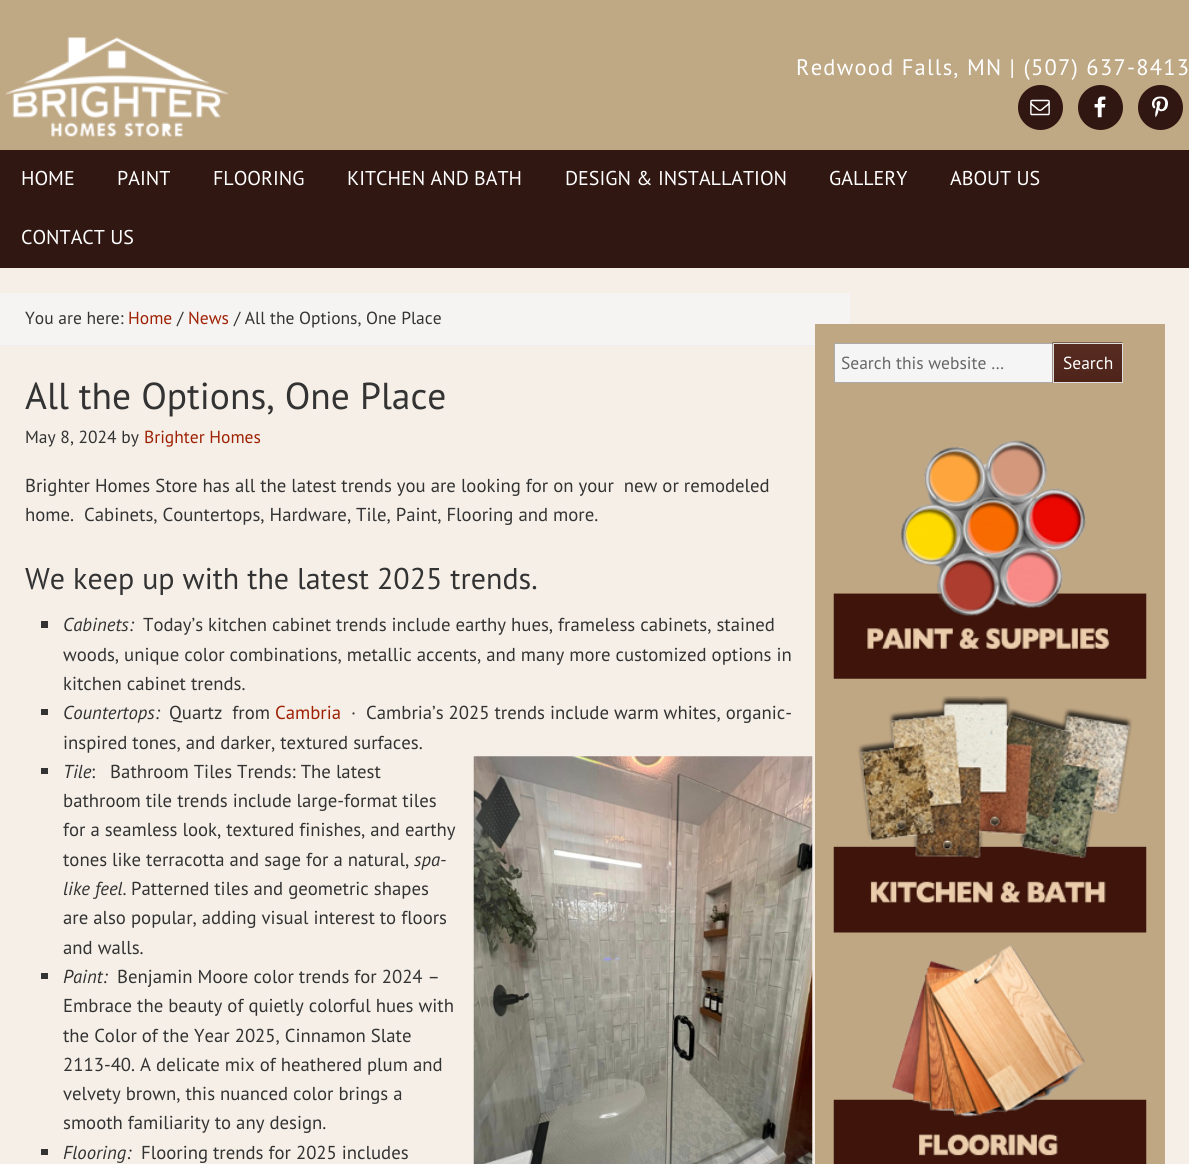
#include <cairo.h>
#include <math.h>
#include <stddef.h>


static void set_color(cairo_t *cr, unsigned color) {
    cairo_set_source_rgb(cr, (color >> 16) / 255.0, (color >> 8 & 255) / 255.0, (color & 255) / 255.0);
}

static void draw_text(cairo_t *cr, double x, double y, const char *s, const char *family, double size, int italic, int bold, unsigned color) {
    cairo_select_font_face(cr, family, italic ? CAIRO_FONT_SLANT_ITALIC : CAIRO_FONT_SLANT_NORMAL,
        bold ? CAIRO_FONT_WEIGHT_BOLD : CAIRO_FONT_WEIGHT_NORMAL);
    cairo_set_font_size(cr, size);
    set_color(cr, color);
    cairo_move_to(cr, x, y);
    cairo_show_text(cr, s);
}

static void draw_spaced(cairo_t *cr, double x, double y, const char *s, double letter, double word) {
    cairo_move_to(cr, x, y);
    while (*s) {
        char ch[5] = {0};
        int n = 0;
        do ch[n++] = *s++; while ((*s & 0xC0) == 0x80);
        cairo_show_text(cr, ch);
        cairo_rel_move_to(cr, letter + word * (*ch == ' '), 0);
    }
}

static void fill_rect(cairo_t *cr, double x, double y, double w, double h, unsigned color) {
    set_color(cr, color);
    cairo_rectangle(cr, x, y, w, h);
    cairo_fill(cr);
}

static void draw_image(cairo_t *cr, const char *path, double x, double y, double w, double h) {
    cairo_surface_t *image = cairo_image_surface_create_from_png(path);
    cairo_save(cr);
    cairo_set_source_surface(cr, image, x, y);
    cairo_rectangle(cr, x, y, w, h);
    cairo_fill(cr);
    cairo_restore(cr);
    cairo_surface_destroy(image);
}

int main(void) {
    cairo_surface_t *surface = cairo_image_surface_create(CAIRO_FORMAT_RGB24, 1189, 1164);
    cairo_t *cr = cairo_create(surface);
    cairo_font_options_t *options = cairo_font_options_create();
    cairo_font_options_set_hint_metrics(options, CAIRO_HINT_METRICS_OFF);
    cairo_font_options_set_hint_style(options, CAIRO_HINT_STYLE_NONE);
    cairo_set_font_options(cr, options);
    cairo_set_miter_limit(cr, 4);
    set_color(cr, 0xF5EFE7);
    cairo_paint(cr);
    fill_rect(cr, 0, 0, 1189, 150, 0xBFA884);
    draw_image(cr, "assets/img1.png", 5, 37, 224, 100);
    cairo_select_font_face(cr, "PT Sans", CAIRO_FONT_SLANT_NORMAL, CAIRO_FONT_WEIGHT_NORMAL);
    cairo_set_font_size(cr, 22.5);
    set_color(cr, 0xFFFFFF);
    draw_spaced(cr, 796, 75, "Redwood Falls, MN | (507) 637-8413", 1.25, 0);
    set_color(cr, 0x301712);
    cairo_new_path(cr);
    cairo_arc(cr, 1040.5, 107.5, 22.5, 0, 2 * M_PI);
    cairo_fill(cr);
    draw_image(cr, "assets/img2.png", 1030, 99, 20, 17);
    cairo_arc(cr, 1100.5, 107.5, 22.5, 0, 2 * M_PI);
    cairo_fill(cr);
    draw_image(cr, "assets/img3.png", 1094, 96, 12, 22);
    cairo_arc(cr, 1160.5, 107.5, 22.5, 0, 2 * M_PI);
    cairo_fill(cr);
    draw_image(cr, "assets/img4.png", 1152, 96, 16, 22);
    fill_rect(cr, 0, 150, 1189, 118, 0x301712);
    draw_text(cr, 21, 185, "HOME", "PT Sans", 20, 0, 0, 0xFFFFFF);
    draw_text(cr, 117, 185, "PAINT", "PT Sans", 20, 0, 0, 0xFFFFFF);
    draw_text(cr, 213, 185, "FLOORING", "PT Sans", 20, 0, 0, 0xFFFFFF);
    draw_text(cr, 347, 185, "KITCHEN AND BATH", "PT Sans", 20, 0, 0, 0xFFFFFF);
    draw_text(cr, 565, 185, "DESIGN & INSTALLATION", "PT Sans", 20, 0, 0, 0xFFFFFF);
    draw_text(cr, 829, 185, "GALLERY", "PT Sans", 20, 0, 0, 0xFFFFFF);
    draw_text(cr, 950, 185, "ABOUT US", "PT Sans", 20, 0, 0, 0xFFFFFF);
    draw_text(cr, 21, 244, "CONTACT US", "PT Sans", 20, 0, 0, 0xFFFFFF);
    fill_rect(cr, 0, 293, 850, 52, 0xF6F4F2);
    fill_rect(cr, 0, 345, 815, 1, 0xEEEEEE);
    draw_text(cr, 25, 324, "You are here:", "PT Sans", 17.5, 0, 0, 0x333333);
    draw_text(cr, 128, 324, "Home", "PT Sans", 17.5, 0, 0, 0x9E2104);
    draw_text(cr, 177, 324, "/", "PT Sans", 17.5, 0, 0, 0x333333);
    draw_text(cr, 188, 324, "News", "PT Sans", 17.5, 0, 0, 0x9E2104);
    draw_text(cr, 234, 324, "/ All the Options, One Place", "PT Sans", 17.5, 0, 0, 0x333333);
    draw_text(cr, 25, 409, "All the Options, One Place", "PT Sans", 37.5, 0, 0, 0x333333);
    draw_text(cr, 25, 443, "May 8, 2024 by", "PT Sans", 17.5, 0, 0, 0x333333);
    draw_text(cr, 144, 443, "Brighter Homes", "PT Sans", 17.5, 0, 0, 0x9E2104);
    draw_text(cr, 25, 492, "Brighter Homes Store has all the latest trends you are looking for on your  new or remodeled", "PT Sans", 18.75, 0, 0, 0x333333);
    draw_text(cr, 25, 521, "home.  Cabinets, Countertops, Hardware, Tile, Paint, Flooring and more.", "PT Sans", 18.75, 0, 0, 0x333333);
    draw_text(cr, 25, 589, "We keep up with the latest 2025 trends.", "PT Sans", 30, 0, 0, 0x333333);
    fill_rect(cr, 41, 621, 7, 7, 0x333333);
    draw_text(cr, 63, 631, "Cabinets:", "PT Sans", 18.75, 1, 0, 0x333333);
    draw_text(cr, 143, 631, "Today’s kitchen cabinet trends include earthy hues, frameless cabinets, stained", "PT Sans", 18.75, 0, 0, 0x333333);
    draw_text(cr, 63, 661, "woods, unique color combinations, metallic accents, and many more customized options in", "PT Sans", 18.75, 0, 0, 0x333333);
    draw_text(cr, 63, 690, "kitchen cabinet trends.", "PT Sans", 18.75, 0, 0, 0x333333);
    fill_rect(cr, 41, 709, 7, 6, 0x333333);
    draw_text(cr, 63, 719, "Countertops:", "PT Sans", 18.75, 1, 0, 0x333333);
    draw_text(cr, 169, 719, "Quartz  from", "PT Sans", 18.75, 0, 0, 0x333333);
    draw_text(cr, 275, 719, "Cambria", "PT Sans", 18.75, 0, 0, 0x9E2104);
    draw_text(cr, 351, 719, "·  Cambria’s 2025 trends include warm whites, organic-", "PT Sans", 18.75, 0, 0, 0x333333);
    draw_text(cr, 63, 749, "inspired tones, and darker, textured surfaces.", "PT Sans", 18.75, 0, 0, 0x333333);
    fill_rect(cr, 41, 768, 7, 6, 0x333333);
    draw_text(cr, 63, 778, "Tile", "PT Sans", 18.75, 1, 0, 0x333333);
    draw_image(cr, "assets/img5.png", 473, 756, 340, 408);
    draw_text(cr, 91, 778, ":   Bathroom Tiles Trends: The latest", "PT Sans", 18.75, 0, 0, 0x333333);
    draw_text(cr, 63, 807, "bathroom tile trends include large-format tiles", "PT Sans", 18.75, 0, 0, 0x333333);
    draw_text(cr, 63, 836, "for a seamless look, textured finishes, and earthy", "PT Sans", 18.75, 0, 0, 0x333333);
    draw_text(cr, 63, 866, "tones like terracotta and sage for a natural,", "PT Sans", 18.75, 0, 0, 0x333333);
    draw_text(cr, 414, 866, "spa-", "PT Sans", 18.75, 1, 0, 0x333333);
    draw_text(cr, 63, 895, "like feel.", "PT Sans", 18.75, 1, 0, 0x333333);
    draw_text(cr, 131, 895, "Patterned tiles and geometric shapes", "PT Sans", 18.75, 0, 0, 0x333333);
    draw_text(cr, 63, 924, "are also popular, adding visual interest to floors", "PT Sans", 18.75, 0, 0, 0x333333);
    draw_text(cr, 63, 954, "and walls.", "PT Sans", 18.75, 0, 0, 0x333333);
    fill_rect(cr, 41, 973, 7, 6, 0x333333);
    draw_text(cr, 63, 983, "Paint:", "PT Sans", 18.75, 1, 0, 0x333333);
    draw_text(cr, 117, 983, "Benjamin Moore color trends for 2024 –", "PT Sans", 18.75, 0, 0, 0x333333);
    draw_text(cr, 63, 1012, "Embrace the beauty of quietly colorful hues with", "PT Sans", 18.75, 0, 0, 0x333333);
    draw_text(cr, 63, 1042, "the Color of the Year 2025, Cinnamon Slate", "PT Sans", 18.75, 0, 0, 0x333333);
    draw_text(cr, 63, 1071, "2113-40. A delicate mix of heathered plum and", "PT Sans", 18.75, 0, 0, 0x333333);
    draw_text(cr, 63, 1100, "velvety brown, this nuanced color brings a", "PT Sans", 18.75, 0, 0, 0x333333);
    draw_text(cr, 63, 1129, "smooth familiarity to any design.", "PT Sans", 18.75, 0, 0, 0x333333);
    fill_rect(cr, 41, 1149, 7, 6, 0x333333);
    draw_text(cr, 63, 1159, "Flooring:", "PT Sans", 18.75, 1, 0, 0x333333);
    draw_text(cr, 141, 1159, "Flooring trends for 2025 includes", "PT Sans", 18.75, 0, 0, 0x333333);
    fill_rect(cr, 815, 324, 350, 840, 0xBFA784);
    fill_rect(cr, 835, 344, 218, 38, 0xF5F5F5);
    cairo_rectangle(cr, 834.5, 343.5, 226, 39);
    set_color(cr, 0xAAAAAA);
    cairo_set_line_width(cr, 1);
    cairo_stroke(cr);
    draw_text(cr, 841, 369, "Search this website …", "PT Sans", 17.5, 0, 0, 0x666666);
    draw_image(cr, "assets/img6.png", 1052, 342, 71, 41);
    cairo_rectangle(cr, 1053.5, 343.5, 69, 39);
    set_color(cr, 0xDDDDDD);
    cairo_stroke(cr);
    draw_text(cr, 1063, 369, "Search", "PT Sans", 17.5, 0, 0, 0xFFFFFF);
    draw_image(cr, "assets/img7.png", 833, 440, 314, 239);
    draw_image(cr, "assets/img8.png", 833, 696, 314, 237);
    draw_image(cr, "assets/img9.png", 833, 945, 314, 219);
    cairo_surface_write_to_png(surface, "output.png");
    cairo_font_options_destroy(options);
    cairo_destroy(cr);
    cairo_surface_destroy(surface);
    return 0;
}
